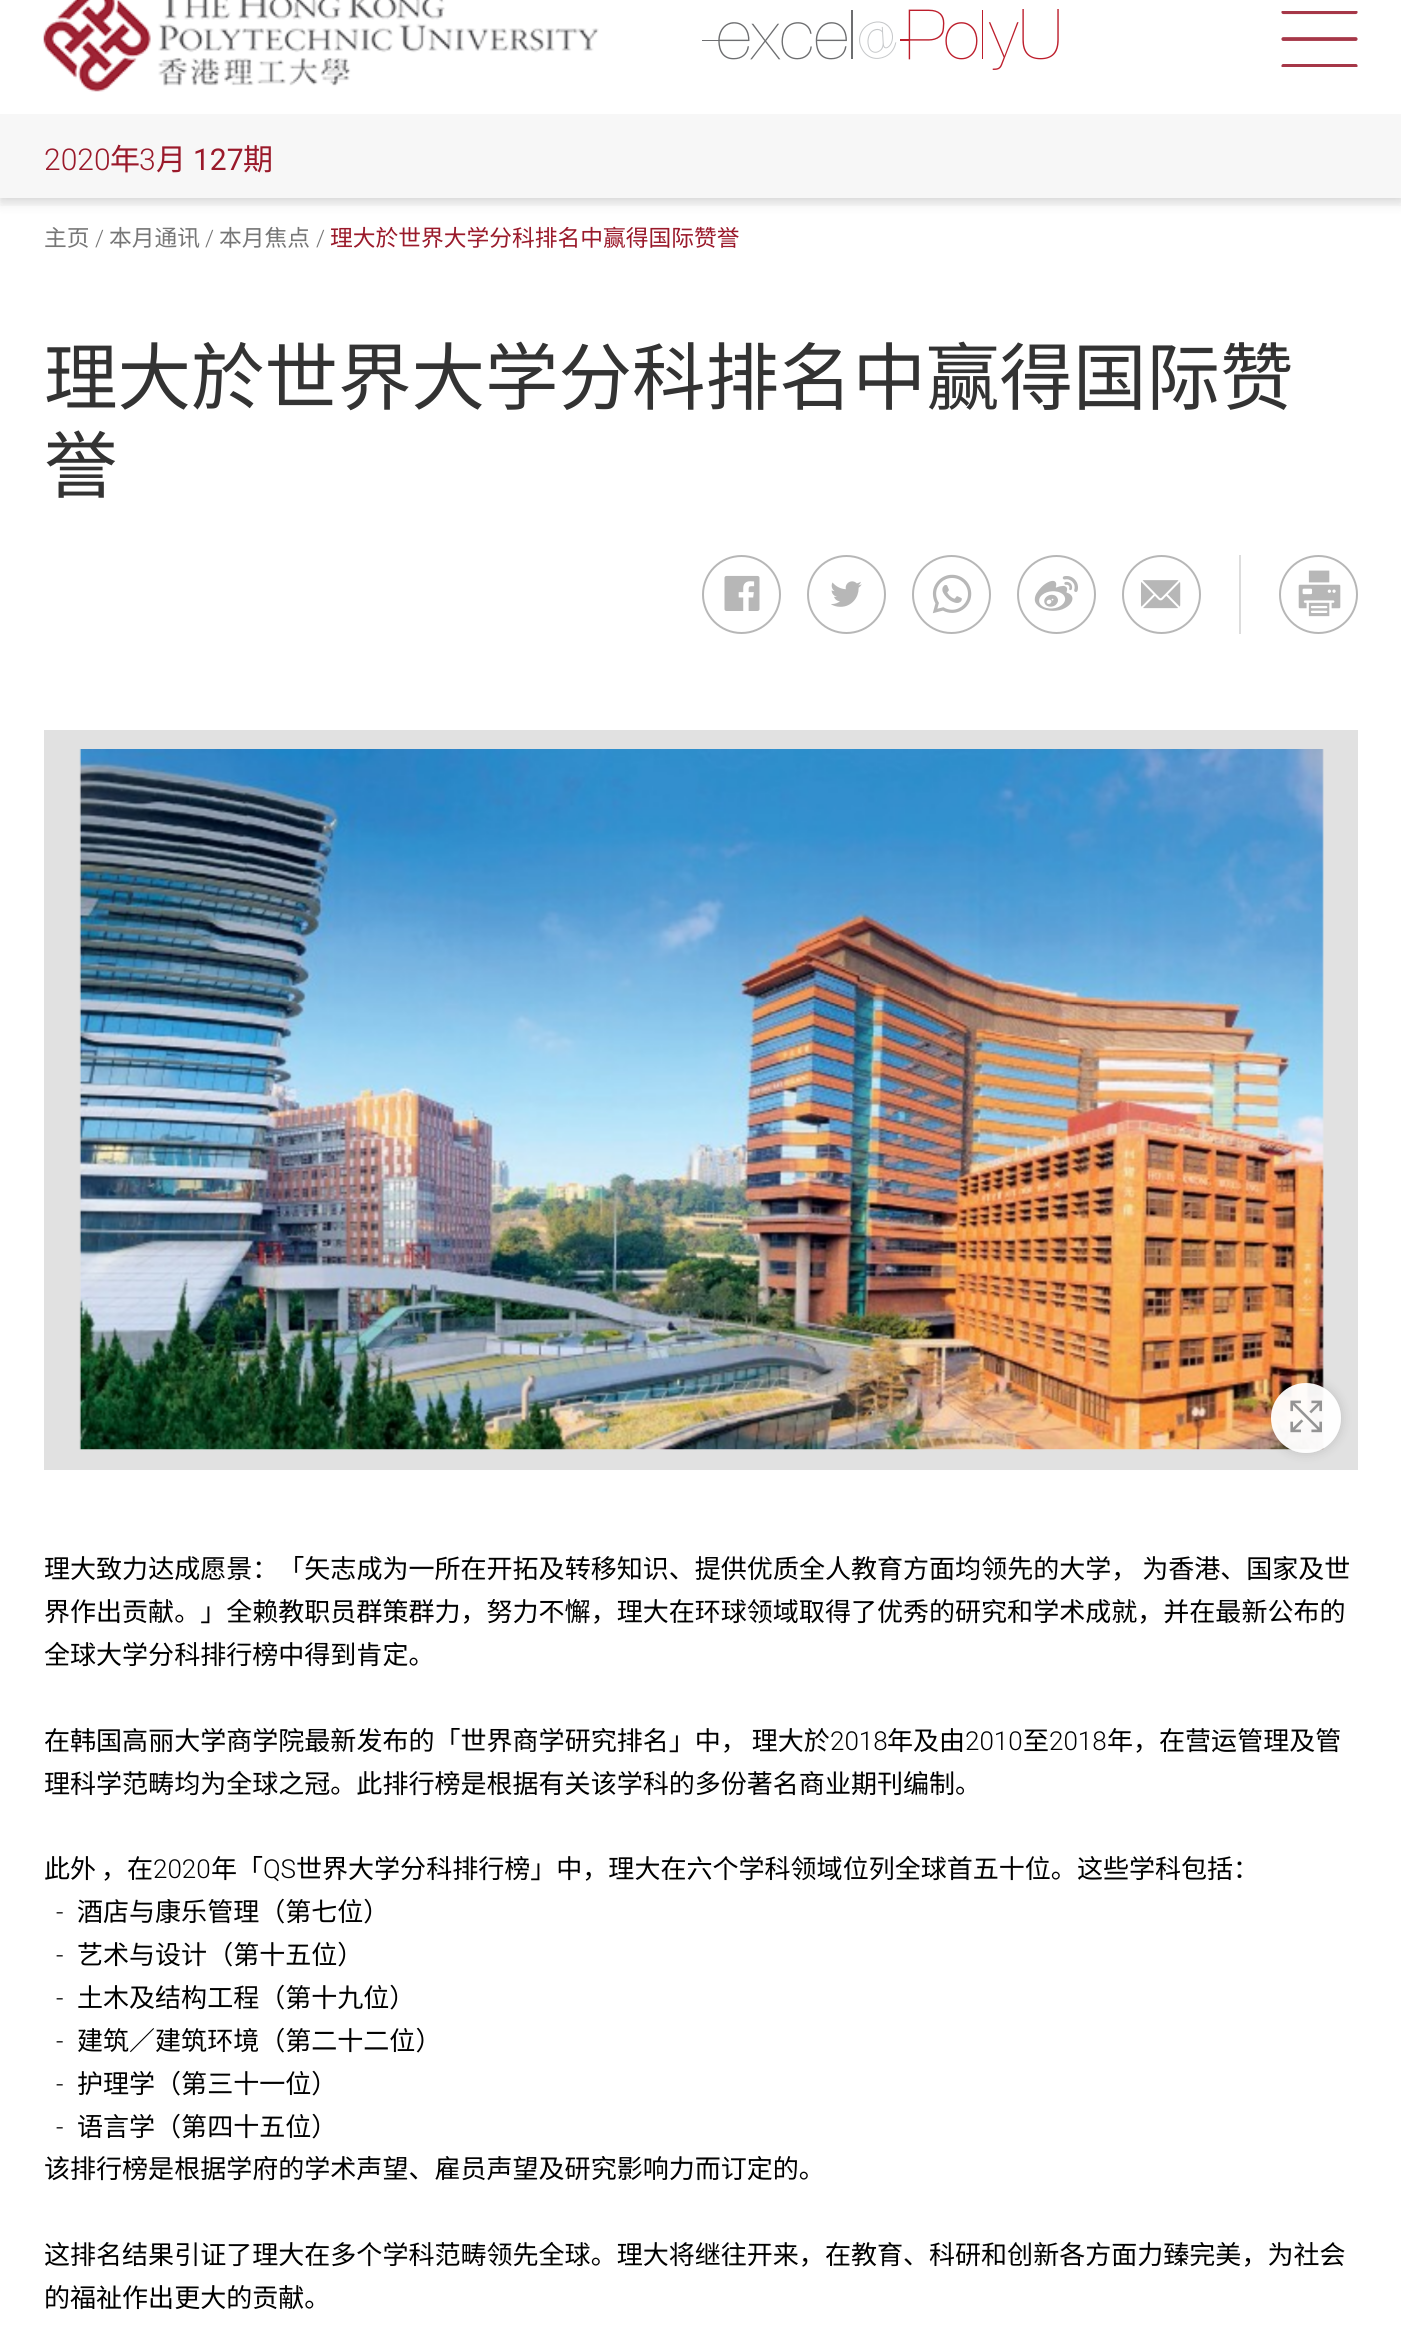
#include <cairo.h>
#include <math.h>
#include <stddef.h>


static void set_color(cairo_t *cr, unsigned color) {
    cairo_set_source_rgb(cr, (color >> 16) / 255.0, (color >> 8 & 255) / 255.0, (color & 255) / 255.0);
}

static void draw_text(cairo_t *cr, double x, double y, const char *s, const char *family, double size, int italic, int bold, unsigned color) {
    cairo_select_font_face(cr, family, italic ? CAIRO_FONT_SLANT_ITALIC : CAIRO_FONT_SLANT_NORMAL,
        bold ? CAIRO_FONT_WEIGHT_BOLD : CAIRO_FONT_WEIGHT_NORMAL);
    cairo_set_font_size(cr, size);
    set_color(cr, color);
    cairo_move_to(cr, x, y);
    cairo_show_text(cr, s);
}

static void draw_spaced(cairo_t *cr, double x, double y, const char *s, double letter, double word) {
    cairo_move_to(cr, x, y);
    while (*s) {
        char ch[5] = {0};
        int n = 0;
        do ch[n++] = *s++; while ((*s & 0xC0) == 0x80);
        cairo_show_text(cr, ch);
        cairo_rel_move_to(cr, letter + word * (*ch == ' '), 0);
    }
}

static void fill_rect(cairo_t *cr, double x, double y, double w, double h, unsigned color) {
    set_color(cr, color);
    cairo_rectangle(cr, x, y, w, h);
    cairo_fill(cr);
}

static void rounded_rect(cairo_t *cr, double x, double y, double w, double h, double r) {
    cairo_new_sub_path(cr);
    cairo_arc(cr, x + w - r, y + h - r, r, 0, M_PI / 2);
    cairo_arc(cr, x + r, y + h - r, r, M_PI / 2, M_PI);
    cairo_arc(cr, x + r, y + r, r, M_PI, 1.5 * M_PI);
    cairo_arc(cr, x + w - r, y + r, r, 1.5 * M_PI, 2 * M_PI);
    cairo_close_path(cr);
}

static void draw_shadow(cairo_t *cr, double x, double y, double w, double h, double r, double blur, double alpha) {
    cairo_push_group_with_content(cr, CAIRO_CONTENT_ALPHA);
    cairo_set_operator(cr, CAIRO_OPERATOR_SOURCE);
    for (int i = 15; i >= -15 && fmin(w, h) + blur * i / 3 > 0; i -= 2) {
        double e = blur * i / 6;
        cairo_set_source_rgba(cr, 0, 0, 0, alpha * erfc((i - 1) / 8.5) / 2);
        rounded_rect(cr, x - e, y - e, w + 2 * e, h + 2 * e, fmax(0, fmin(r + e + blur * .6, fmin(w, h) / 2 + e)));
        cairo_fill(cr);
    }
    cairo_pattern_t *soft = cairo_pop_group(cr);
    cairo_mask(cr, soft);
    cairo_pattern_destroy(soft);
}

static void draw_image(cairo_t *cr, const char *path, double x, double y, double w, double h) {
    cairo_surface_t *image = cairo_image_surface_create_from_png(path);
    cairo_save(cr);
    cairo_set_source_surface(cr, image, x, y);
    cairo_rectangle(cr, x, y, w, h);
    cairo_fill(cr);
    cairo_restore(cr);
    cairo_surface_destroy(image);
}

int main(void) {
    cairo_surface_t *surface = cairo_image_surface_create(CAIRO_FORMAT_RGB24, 1401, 2344);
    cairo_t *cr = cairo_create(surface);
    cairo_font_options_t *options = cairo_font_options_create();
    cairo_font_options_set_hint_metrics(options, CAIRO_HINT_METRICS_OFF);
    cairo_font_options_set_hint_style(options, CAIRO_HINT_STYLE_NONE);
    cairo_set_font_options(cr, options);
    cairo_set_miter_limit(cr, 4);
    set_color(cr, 0xFFFFFF);
    cairo_paint(cr);
    cairo_save(cr);
    cairo_rectangle(cr, 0, 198, 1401, 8);
    cairo_clip(cr);
    set_color(cr, 0x323232);
    draw_shadow(cr, 0, -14, 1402, 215, 0, 4.5, 0.15);
    cairo_restore(cr);
    fill_rect(cr, 0, 114, 1401, 9, 0xF7F7F7);
    draw_image(cr, "assets/img1.png", 43, 0, 556, 92);
    draw_image(cr, "assets/img2.png", 702, 9, 357, 61);
    draw_image(cr, "assets/img3.png", 1281, 11, 77, 56);
    set_color(cr, 0x000000);
    draw_shadow(cr, 0, 131, 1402, 76, 0, 4.5, 0.05);
    fill_rect(cr, 0, 123, 1401, 75, 0xF7F7F7);
    draw_text(cr, 44, 170, "2020", "Roboto Light", 30, 0, 0, 0x9A192A);
    draw_text(cr, 110, 170, "年", "Noto Sans CJK SC", 30, 0, 0, 0x9A192A);
    draw_text(cr, 139, 170, "3", "Roboto Light", 30, 0, 0, 0x9A192A);
    draw_text(cr, 156, 170, "月", "Noto Sans CJK SC", 30, 0, 0, 0x9A192A);
    draw_text(cr, 193, 170, "127", "Roboto", 30, 0, 0, 0x9A192A);
    draw_text(cr, 243, 170, "期", "Noto Sans CJK SC", 30, 0, 0, 0x9A192A);
    draw_text(cr, 44, 246, "主页", "Noto Sans CJK SC", 22.75, 0, 0, 0x767676);
    draw_text(cr, 95, 246, "/", "Roboto Light", 22.75, 0, 0, 0x767676);
    draw_text(cr, 109, 246, "本月通讯", "Noto Sans CJK SC", 22.75, 0, 0, 0x767676);
    draw_text(cr, 205, 246, "/", "Roboto Light", 22.75, 0, 0, 0x767676);
    draw_text(cr, 219, 246, "本月焦点", "Noto Sans CJK SC", 22.75, 0, 0, 0x767676);
    draw_text(cr, 316, 246, "/", "Roboto Light", 22.75, 0, 0, 0x767676);
    draw_text(cr, 330, 246, "理大於世界大学分科排名中赢得国际赞誉", "Noto Sans CJK SC", 22.75, 0, 0, 0x9A192A);
    draw_text(cr, 44, 404, "理大於世界大学分科排名中赢得国际赞", "Noto Sans CJK SC", 73.5, 0, 0, 0x333333);
    draw_text(cr, 44, 492, "誉", "Noto Sans CJK SC", 73.5, 0, 0, 0x333333);
    cairo_new_path(cr);
    cairo_arc(cr, 741.5, 594.5, 38.5, 0, 2 * M_PI);
    set_color(cr, 0xB7B7B7);
    cairo_stroke(cr);
    draw_image(cr, "assets/img4.png", 724, 575, 36, 36);
    cairo_arc(cr, 846.5, 594.5, 38.5, 0, 2 * M_PI);
    cairo_stroke(cr);
    draw_image(cr, "assets/img5.png", 831, 581, 31, 26);
    cairo_arc(cr, 951.5, 594.5, 38.5, 0, 2 * M_PI);
    cairo_stroke(cr);
    draw_image(cr, "assets/img6.png", 932, 574, 40, 40);
    cairo_arc(cr, 1056.5, 594.5, 38.5, 0, 2 * M_PI);
    cairo_stroke(cr);
    draw_image(cr, "assets/img7.png", 1034, 576, 44, 35);
    cairo_arc(cr, 1161.5, 594.5, 38.5, 0, 2 * M_PI);
    cairo_stroke(cr);
    draw_image(cr, "assets/img8.png", 1141, 580, 40, 29);
    fill_rect(cr, 1239, 555, 2, 79, 0xDDDDDD);
    cairo_arc(cr, 1318.5, 594.5, 38.5, 0, 2 * M_PI);
    set_color(cr, 0xB7B7B7);
    cairo_stroke(cr);
    draw_image(cr, "assets/img9.png", 1298, 570, 43, 47);
    fill_rect(cr, 44, 730, 1314, 740, 0xE1E1E1);
    draw_image(cr, "assets/img10.png", 79, 749, 1245, 701);
    cairo_save(cr);
    cairo_set_fill_rule(cr, CAIRO_FILL_RULE_EVEN_ODD);
    cairo_new_path(cr);
    cairo_move_to(cr, 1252, 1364);
    cairo_line_to(cr, 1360, 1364);
    cairo_line_to(cr, 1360, 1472);
    cairo_line_to(cr, 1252, 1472);
    cairo_close_path(cr);
    cairo_move_to(cr, 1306, 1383);
    cairo_curve_to(cr, 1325.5, 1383, 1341, 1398.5, 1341, 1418);
    cairo_curve_to(cr, 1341, 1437.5, 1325.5, 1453, 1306, 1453);
    cairo_curve_to(cr, 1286.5, 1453, 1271, 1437.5, 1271, 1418);
    cairo_curve_to(cr, 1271, 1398.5, 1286.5, 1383, 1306, 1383);
    cairo_close_path(cr);
    cairo_clip(cr);
    set_color(cr, 0x000000);
    draw_shadow(cr, 1271, 1383, 70, 70, 35, 6, 0.15);
    cairo_restore(cr);
    cairo_set_source_rgba(cr, 1, 1, 1, 0.95);
    cairo_arc(cr, 1306, 1418, 35, 0, 2 * M_PI);
    cairo_fill(cr);
    draw_image(cr, "assets/img11.png", 1290, 1400, 32, 33);
    cairo_set_font_size(cr, 26.03);
    set_color(cr, 0x000000);
    draw_spaced(cr, 44, 1578, "理大致力达成愿景：「矢志成为一所在开拓及转移知识、提供优质全人教育方面均领先的大学， 为香港、国家及世", 0, -1);
    draw_text(cr, 44, 1621, "界作出贡献。」全赖教职员群策群力，努力不懈，理大在环球领域取得了优秀的研究和学术成就，并在最新公布的", "Noto Sans CJK SC", 26.03, 0, 0, 0x000000);
    draw_text(cr, 44, 1664, "全球大学分科排行榜中得到肯定。", "Noto Sans CJK SC", 26.03, 0, 0, 0x000000);
    draw_spaced(cr, 44, 1750, "在韩国高丽大学商学院最新发布的「世界商学研究排名」中， 理大於", 0, -1);
    draw_text(cr, 830, 1750, "2018", "Roboto Light", 26.03, 0, 0, 0x000000);
    draw_text(cr, 887, 1750, "年及由", "Noto Sans CJK SC", 26.03, 0, 0, 0x000000);
    draw_text(cr, 965, 1750, "2010", "Roboto Light", 26.03, 0, 0, 0x000000);
    draw_text(cr, 1023, 1750, "至", "Noto Sans CJK SC", 26.03, 0, 0, 0x000000);
    draw_text(cr, 1049, 1750, "2018", "Roboto Light", 26.03, 0, 0, 0x000000);
    draw_text(cr, 1107, 1750, "年，在营运管理及管", "Noto Sans CJK SC", 26.03, 0, 0, 0x000000);
    draw_text(cr, 44, 1793, "理科学范畴均为全球之冠。此排行榜是根据有关该学科的多份著名商业期刊编制。", "Noto Sans CJK SC", 26.03, 0, 0, 0x000000);
    draw_spaced(cr, 44, 1878, "此外 ，在", 0, -1);
    draw_text(cr, 153, 1878, "2020", "Roboto Light", 26.03, 0, 0, 0x000000);
    draw_text(cr, 211, 1878, "年「", "Noto Sans CJK SC", 26.03, 0, 0, 0x000000);
    draw_text(cr, 263, 1878, "QS", "Roboto Light", 26.03, 0, 0, 0x000000);
    draw_text(cr, 296, 1878, "世界大学分科排行榜」中，理大在六个学科领域位列全球首五十位。这些学科包括：", "Noto Sans CJK SC", 26.03, 0, 0, 0x000000);
    draw_text(cr, 56, 1921, "-", "Roboto Light", 26.03, 0, 0, 0x000000);
    draw_text(cr, 77, 1921, "酒店与康乐管理（第七位）", "Noto Sans CJK SC", 26.03, 0, 0, 0x000000);
    draw_text(cr, 56, 1964, "-", "Roboto Light", 26.03, 0, 0, 0x000000);
    draw_text(cr, 77, 1964, "艺术与设计（第十五位）", "Noto Sans CJK SC", 26.03, 0, 0, 0x000000);
    draw_text(cr, 56, 2007, "-", "Roboto Light", 26.03, 0, 0, 0x000000);
    draw_text(cr, 77, 2007, "土木及结构工程（第十九位）", "Noto Sans CJK SC", 26.03, 0, 0, 0x000000);
    draw_text(cr, 56, 2050, "-", "Roboto Light", 26.03, 0, 0, 0x000000);
    draw_text(cr, 77, 2050, "建筑／建筑环境（第二十二位）", "Noto Sans CJK SC", 26.03, 0, 0, 0x000000);
    draw_text(cr, 56, 2093, "-", "Roboto Light", 26.03, 0, 0, 0x000000);
    draw_text(cr, 77, 2093, "护理学（第三十一位）", "Noto Sans CJK SC", 26.03, 0, 0, 0x000000);
    draw_text(cr, 56, 2136, "-", "Roboto Light", 26.03, 0, 0, 0x000000);
    draw_text(cr, 77, 2136, "语言学（第四十五位）", "Noto Sans CJK SC", 26.03, 0, 0, 0x000000);
    draw_text(cr, 44, 2178, "该排行榜是根据学府的学术声望、雇员声望及研究影响力而订定的。", "Noto Sans CJK SC", 26.03, 0, 0, 0x000000);
    draw_text(cr, 44, 2264, "这排名结果引证了理大在多个学科范畴领先全球。理大将继往开来，在教育、科研和创新各方面力臻完美，为社会", "Noto Sans CJK SC", 26.03, 0, 0, 0x000000);
    draw_text(cr, 44, 2307, "的福祉作出更大的贡献。", "Noto Sans CJK SC", 26.03, 0, 0, 0x000000);
    cairo_surface_write_to_png(surface, "output.png");
    cairo_font_options_destroy(options);
    cairo_destroy(cr);
    cairo_surface_destroy(surface);
    return 0;
}
